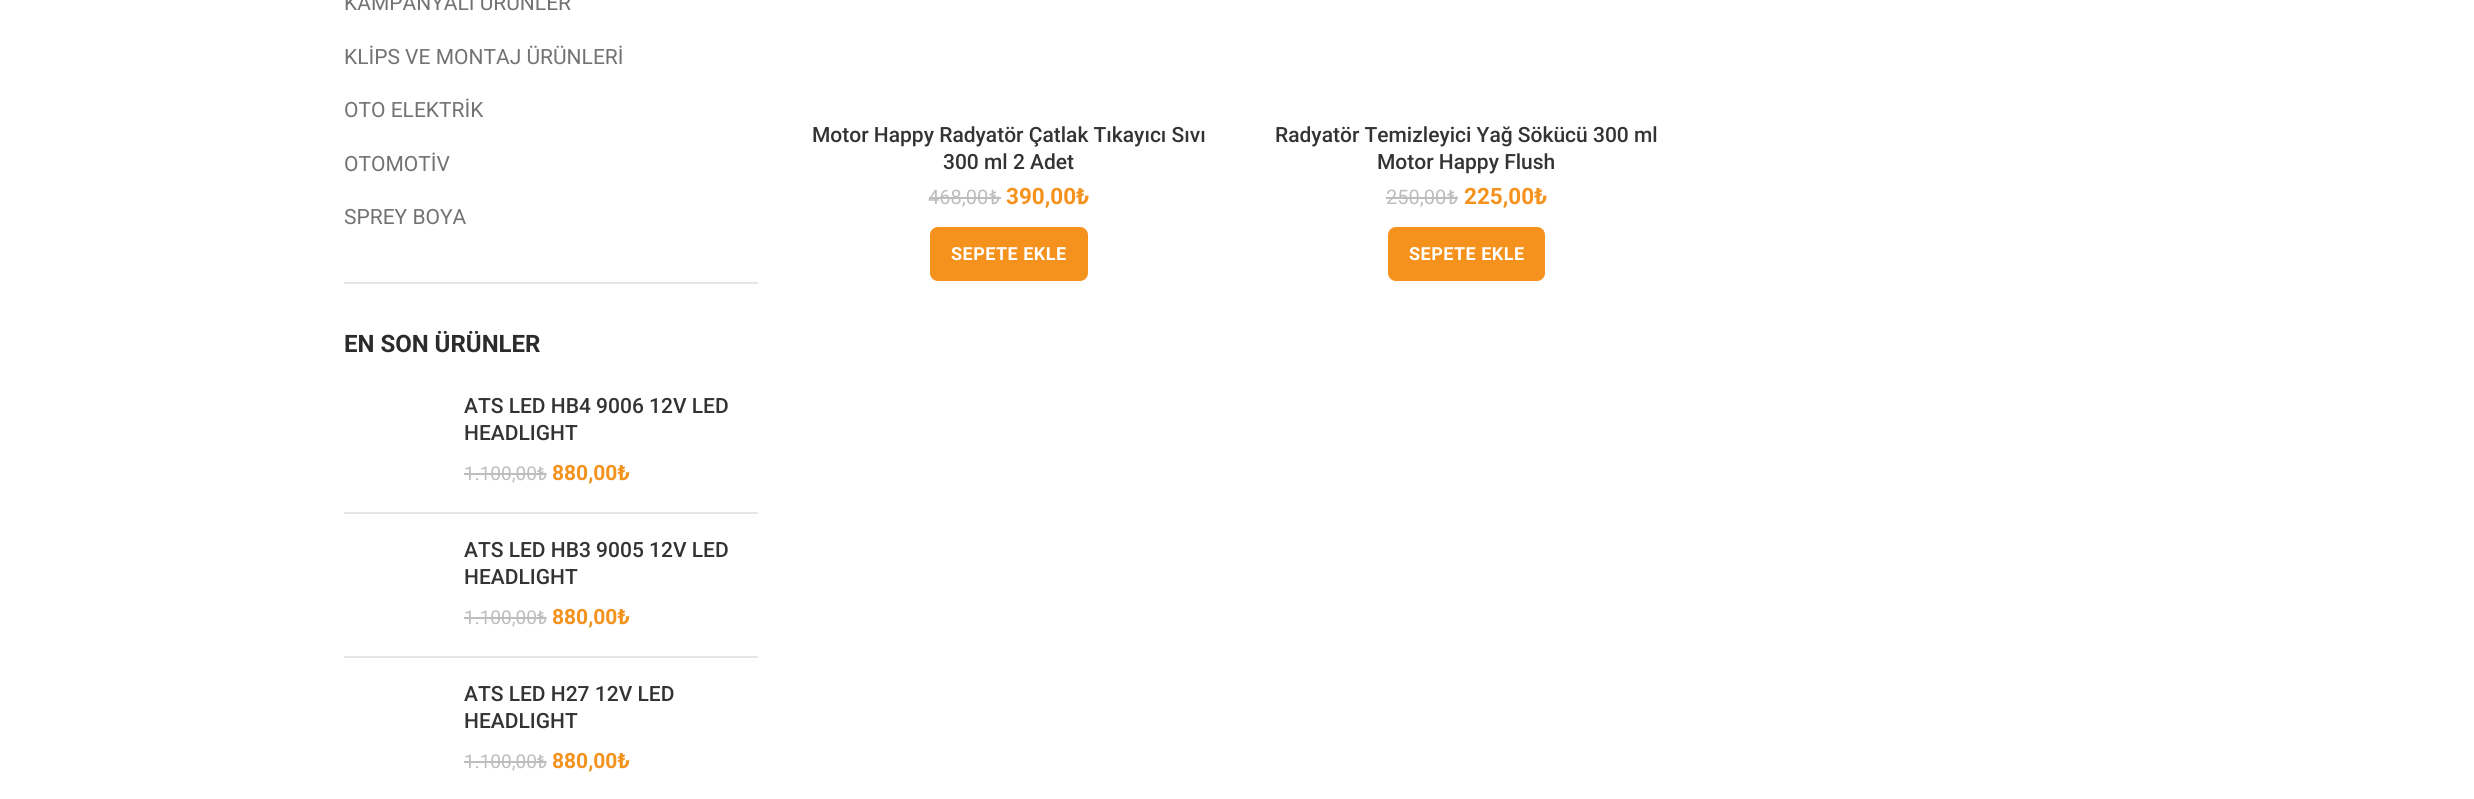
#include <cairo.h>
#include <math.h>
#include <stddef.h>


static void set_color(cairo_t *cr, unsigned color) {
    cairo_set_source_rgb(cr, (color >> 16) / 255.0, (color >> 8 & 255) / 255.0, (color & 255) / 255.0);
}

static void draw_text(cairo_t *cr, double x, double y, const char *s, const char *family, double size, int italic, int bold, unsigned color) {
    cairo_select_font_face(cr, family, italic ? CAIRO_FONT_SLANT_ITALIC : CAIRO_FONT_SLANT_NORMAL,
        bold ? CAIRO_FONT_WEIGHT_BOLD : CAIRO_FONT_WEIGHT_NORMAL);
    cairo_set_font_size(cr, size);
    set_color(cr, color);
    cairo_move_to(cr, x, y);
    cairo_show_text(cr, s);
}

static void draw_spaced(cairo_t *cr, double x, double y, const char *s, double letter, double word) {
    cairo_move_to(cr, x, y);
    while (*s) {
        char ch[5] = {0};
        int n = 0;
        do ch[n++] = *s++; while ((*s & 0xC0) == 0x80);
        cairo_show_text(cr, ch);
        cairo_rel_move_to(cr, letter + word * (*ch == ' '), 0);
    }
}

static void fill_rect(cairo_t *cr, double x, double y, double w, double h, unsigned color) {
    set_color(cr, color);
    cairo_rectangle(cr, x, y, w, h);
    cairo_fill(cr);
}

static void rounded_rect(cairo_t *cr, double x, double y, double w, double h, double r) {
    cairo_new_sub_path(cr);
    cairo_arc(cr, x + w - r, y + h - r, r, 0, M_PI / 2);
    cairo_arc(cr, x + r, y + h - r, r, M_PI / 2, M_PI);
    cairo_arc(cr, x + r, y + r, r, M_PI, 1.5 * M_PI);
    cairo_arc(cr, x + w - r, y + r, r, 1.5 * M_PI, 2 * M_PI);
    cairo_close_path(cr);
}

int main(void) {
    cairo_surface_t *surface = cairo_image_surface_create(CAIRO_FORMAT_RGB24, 2474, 799);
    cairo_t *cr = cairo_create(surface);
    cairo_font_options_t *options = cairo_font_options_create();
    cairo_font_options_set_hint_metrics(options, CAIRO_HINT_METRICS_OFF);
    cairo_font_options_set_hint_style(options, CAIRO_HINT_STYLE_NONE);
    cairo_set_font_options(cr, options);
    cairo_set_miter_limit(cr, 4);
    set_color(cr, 0xFFFFFF);
    cairo_paint(cr);
    fill_rect(cr, 344, 282, 414, 2, 0xE6E6E6);
    draw_text(cr, 344, 10, "KAMPANYALI ÜRÜNLER", "Roboto", 21, 0, 0, 0x727272);
    draw_text(cr, 344, 64, "KLİPS VE MONTAJ ÜRÜNLERİ", "Roboto", 21, 0, 0, 0x727272);
    draw_text(cr, 344, 117, "OTO ELEKTRİK", "Roboto", 21, 0, 0, 0x727272);
    draw_text(cr, 344, 171, "OTOMOTİV", "Roboto", 21, 0, 0, 0x727272);
    draw_text(cr, 344, 224, "SPREY BOYA", "Roboto", 21, 0, 0, 0x727272);
    draw_text(cr, 344, 352, "EN SON ÜRÜNLER", "Roboto", 24, 0, 1, 0x2D2A2A);
    fill_rect(cr, 344, 512, 414, 2, 0xE6E6E6);
    draw_text(cr, 464, 413, "ATS LED HB4 9006 12V LED", "Roboto Medium", 21, 0, 0, 0x333333);
    draw_text(cr, 464, 440, "HEADLIGHT", "Roboto Medium", 21, 0, 0, 0x333333);
    draw_text(cr, 464, 480, "1.100,00₺", "Roboto", 19, 0, 0, 0xBDBDBD);
    fill_rect(cr, 464, 473, 82, 2, 0xBDBDBD);
    draw_text(cr, 552, 480, "880,00₺", "Roboto", 21, 0, 1, 0xF5921D);
    fill_rect(cr, 344, 656, 414, 2, 0xE6E6E6);
    draw_text(cr, 464, 557, "ATS LED HB3 9005 12V LED", "Roboto Medium", 21, 0, 0, 0x333333);
    draw_text(cr, 464, 584, "HEADLIGHT", "Roboto Medium", 21, 0, 0, 0x333333);
    draw_text(cr, 464, 624, "1.100,00₺", "Roboto", 19, 0, 0, 0xBDBDBD);
    fill_rect(cr, 464, 617, 82, 2, 0xBDBDBD);
    draw_text(cr, 552, 624, "880,00₺", "Roboto", 21, 0, 1, 0xF5921D);
    draw_text(cr, 464, 701, "ATS LED H27 12V LED", "Roboto Medium", 21, 0, 0, 0x333333);
    draw_text(cr, 464, 728, "HEADLIGHT", "Roboto Medium", 21, 0, 0, 0x333333);
    draw_text(cr, 464, 768, "1.100,00₺", "Roboto", 19, 0, 0, 0xBDBDBD);
    fill_rect(cr, 464, 761, 82, 2, 0xBDBDBD);
    draw_text(cr, 552, 768, "880,00₺", "Roboto", 21, 0, 1, 0xF5921D);
    draw_text(cr, 812, 142, "Motor Happy Radyatör Çatlak Tıkayıcı Sıvı", "Roboto Medium", 21, 0, 0, 0x333333);
    draw_text(cr, 943, 169, "300 ml 2 Adet", "Roboto Medium", 21, 0, 0, 0x333333);
    draw_text(cr, 928, 204, "468,00", "Roboto", 20, 0, 0, 0xBDBDBD);
    fill_rect(cr, 929, 197, 60, 2, 0xBDBDBD);
    fill_rect(cr, 989, 197, 12, 2, 0xBDBDBD);
    draw_text(cr, 989, 204, "₺", "Roboto", 20, 0, 0, 0xBDBDBD);
    draw_text(cr, 1006, 204, "390,00₺", "Roboto", 22.5, 0, 1, 0xF5921D);
    rounded_rect(cr, 930, 227, 158, 54, 8);
    cairo_fill(cr);
    cairo_set_font_size(cr, 18);
    set_color(cr, 0xFFFFFF);
    draw_spaced(cr, 951, 260, "SEPETE EKLE", 0.5, 0);
    draw_text(cr, 1275, 142, "Radyatör Temizleyici Yağ Sökücü 300 ml", "Roboto Medium", 21, 0, 0, 0x333333);
    draw_text(cr, 1377, 169, "Motor Happy Flush", "Roboto Medium", 21, 0, 0, 0x333333);
    draw_text(cr, 1386, 204, "250,00", "Roboto", 20, 0, 0, 0xBDBDBD);
    fill_rect(cr, 1386, 197, 62, 2, 0xBDBDBD);
    fill_rect(cr, 1448, 197, 10, 2, 0xBDBDBD);
    draw_text(cr, 1447, 204, "₺", "Roboto", 20, 0, 0, 0xBDBDBD);
    draw_text(cr, 1464, 204, "225,00₺", "Roboto", 22.5, 0, 1, 0xF5921D);
    rounded_rect(cr, 1388, 227, 157, 54, 8);
    cairo_fill(cr);
    cairo_set_font_size(cr, 18);
    set_color(cr, 0xFFFFFF);
    draw_spaced(cr, 1409, 260, "SEPETE EKLE", 0.5, 0);
    cairo_surface_write_to_png(surface, "output.png");
    cairo_font_options_destroy(options);
    cairo_destroy(cr);
    cairo_surface_destroy(surface);
    return 0;
}
